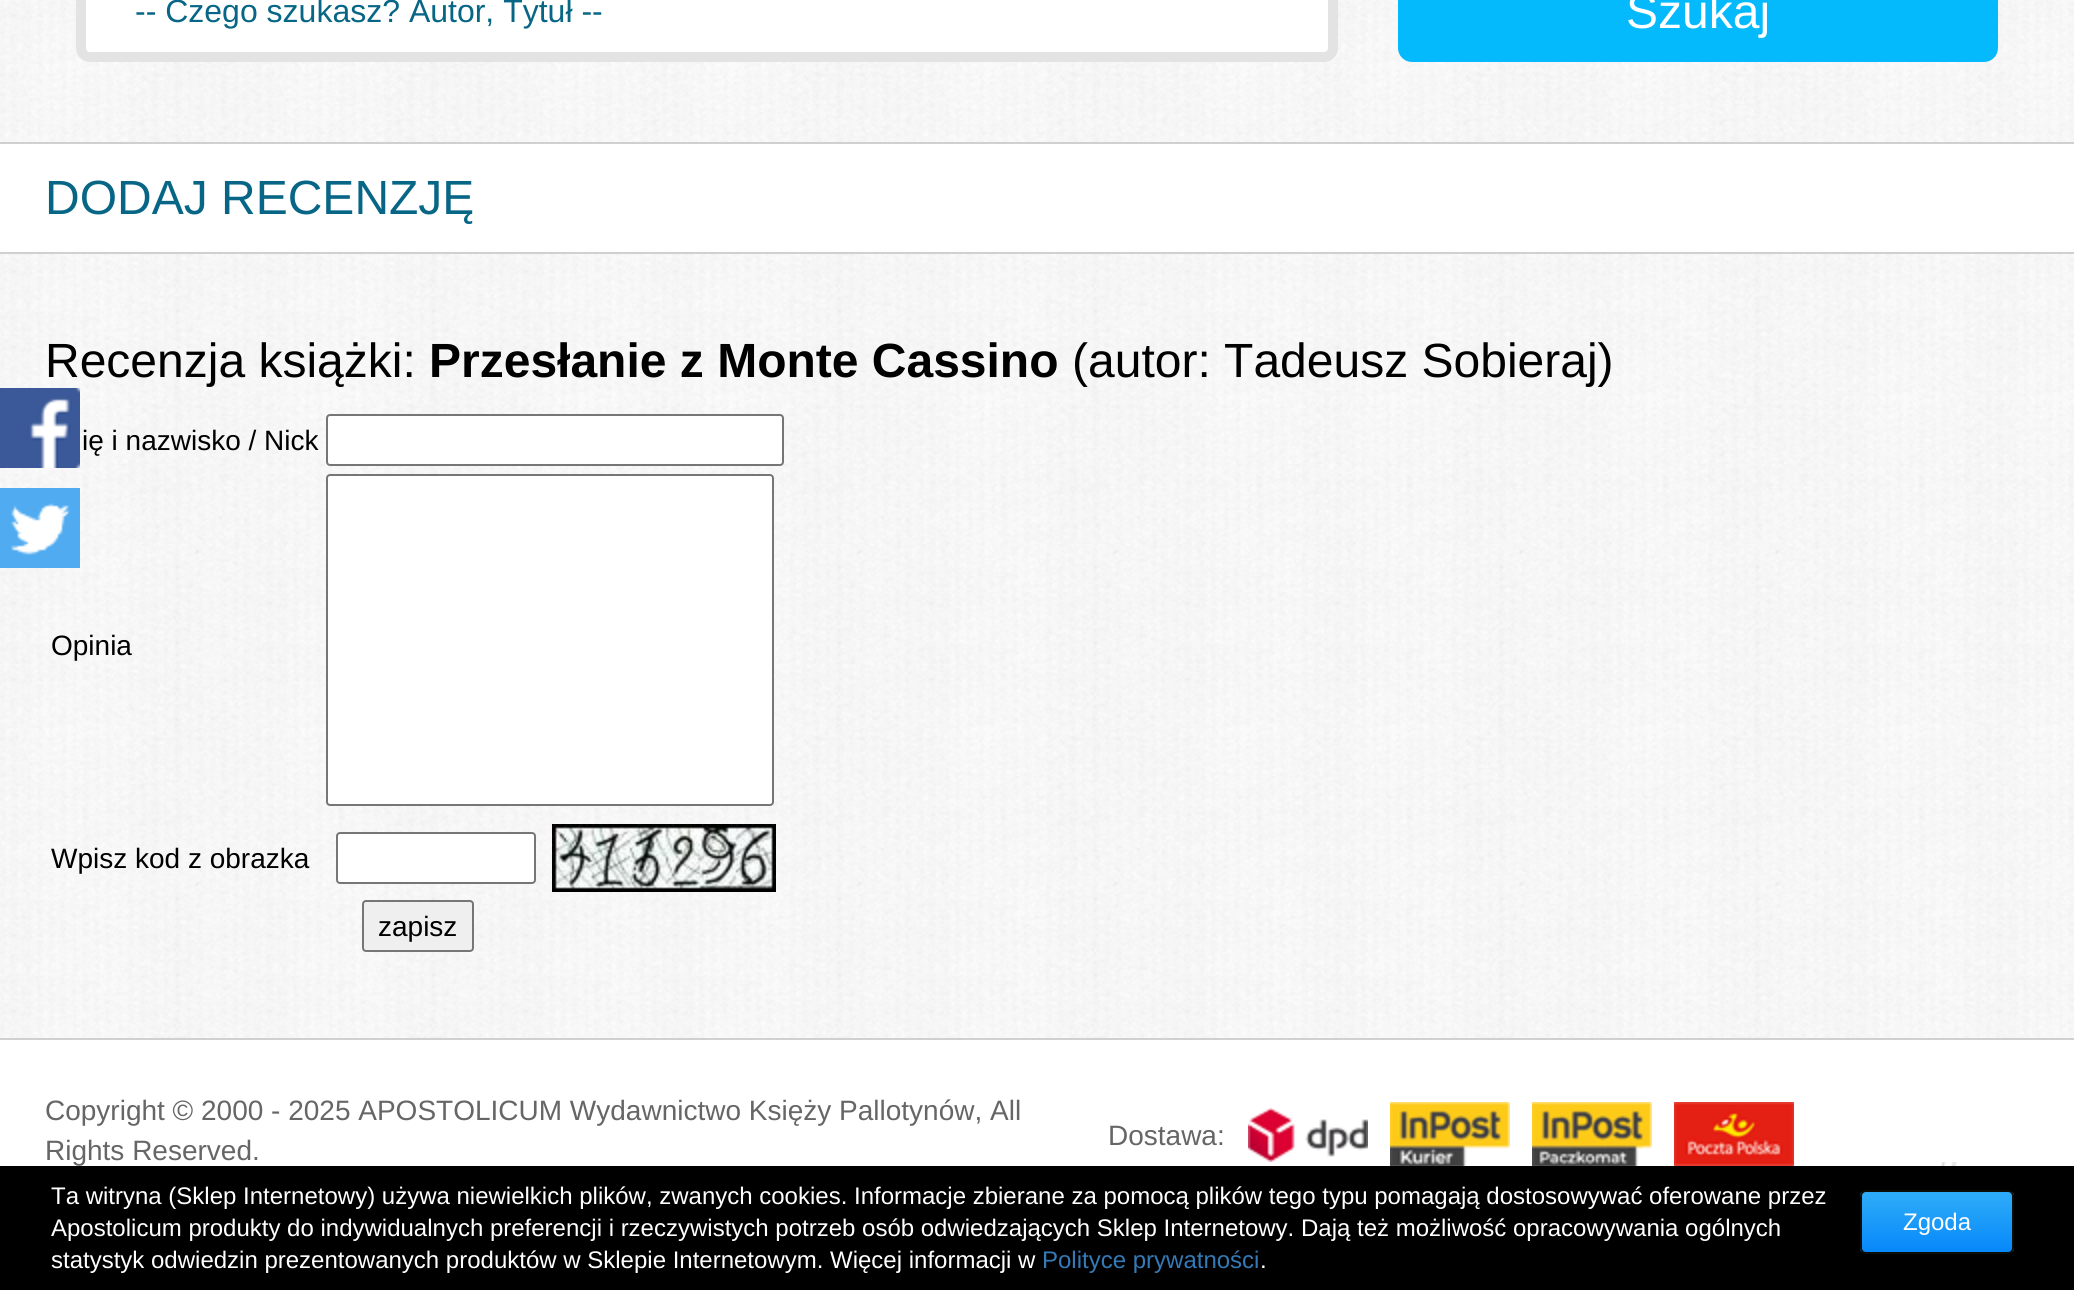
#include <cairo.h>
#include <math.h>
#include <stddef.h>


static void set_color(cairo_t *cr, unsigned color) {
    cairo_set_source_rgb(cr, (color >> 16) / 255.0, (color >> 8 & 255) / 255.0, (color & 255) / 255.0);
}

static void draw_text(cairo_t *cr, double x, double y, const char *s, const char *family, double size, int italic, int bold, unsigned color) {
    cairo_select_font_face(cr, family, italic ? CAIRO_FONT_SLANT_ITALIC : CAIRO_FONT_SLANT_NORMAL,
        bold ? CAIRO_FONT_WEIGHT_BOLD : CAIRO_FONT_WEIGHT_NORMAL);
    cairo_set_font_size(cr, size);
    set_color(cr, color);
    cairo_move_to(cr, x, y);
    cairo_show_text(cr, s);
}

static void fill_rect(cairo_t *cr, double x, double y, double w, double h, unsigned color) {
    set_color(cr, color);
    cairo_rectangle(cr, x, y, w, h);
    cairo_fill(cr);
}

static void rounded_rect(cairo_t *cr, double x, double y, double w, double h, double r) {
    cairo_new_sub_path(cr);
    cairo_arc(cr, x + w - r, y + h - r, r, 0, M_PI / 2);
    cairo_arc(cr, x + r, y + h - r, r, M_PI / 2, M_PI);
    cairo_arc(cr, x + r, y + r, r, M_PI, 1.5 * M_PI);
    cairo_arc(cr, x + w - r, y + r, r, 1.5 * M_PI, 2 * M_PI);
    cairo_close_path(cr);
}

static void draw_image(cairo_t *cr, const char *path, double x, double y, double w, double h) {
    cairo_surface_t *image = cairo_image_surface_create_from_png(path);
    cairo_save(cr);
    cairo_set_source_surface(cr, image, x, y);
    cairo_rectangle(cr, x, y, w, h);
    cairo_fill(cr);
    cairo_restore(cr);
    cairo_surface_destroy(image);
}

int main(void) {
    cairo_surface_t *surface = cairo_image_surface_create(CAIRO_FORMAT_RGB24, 2074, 1290);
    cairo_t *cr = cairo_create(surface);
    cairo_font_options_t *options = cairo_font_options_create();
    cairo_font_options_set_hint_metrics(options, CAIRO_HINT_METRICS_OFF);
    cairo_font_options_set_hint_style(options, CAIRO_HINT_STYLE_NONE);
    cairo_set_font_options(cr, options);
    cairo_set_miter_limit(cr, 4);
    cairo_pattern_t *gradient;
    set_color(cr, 0xFFFFFF);
    cairo_paint(cr);
    draw_image(cr, "assets/img1.png", 0, 0, 2074, 1038);
    set_color(cr, 0xFFFFFF);
    rounded_rect(cr, 81, -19, 1252, 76, 9);
    cairo_fill_preserve(cr);
    set_color(cr, 0xE3E3E3);
    cairo_set_line_width(cr, 10);
    cairo_stroke(cr);
    draw_text(cr, 135, 22, "-- Czego szukasz? Autor, Tytuł --", "Liberation Sans", 32, 0, 0, 0x076686);
    set_color(cr, 0x04BAFC);
    rounded_rect(cr, 1398, -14, 600, 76, 14);
    cairo_fill(cr);
    draw_text(cr, 1626, 28, "Szukaj", "Liberation Sans", 48, 0, 0, 0xFFFFFF);
    fill_rect(cr, 0, 144, 2074, 108, 0xFFFFFF);
    fill_rect(cr, 0, 142, 2074, 2, 0xD0D0D0);
    fill_rect(cr, 0, 252, 2074, 2, 0xD0D0D0);
    draw_text(cr, 45, 214, "DODAJ RECENZJĘ", "Liberation Sans", 48, 0, 0, 0x076686);
    draw_image(cr, "assets/img2.png", 0, 388, 80, 80);
    draw_image(cr, "assets/img3.png", 0, 488, 80, 80);
    draw_text(cr, 45, 377, "Recenzja książki:", "Liberation Sans", 48, 0, 0, 0x000000);
    draw_text(cr, 429, 377, "Przesłanie z Monte Cassino", "Liberation Sans", 48, 0, 1, 0x000000);
    draw_text(cr, 1072, 377, "(autor: Tadeusz Sobieraj)", "Liberation Sans", 48, 0, 0, 0x000000);
    draw_text(cr, 82, 450, "ię i nazwisko / Nick", "Liberation Sans", 28, 0, 0, 0x000000);
    set_color(cr, 0xFFFFFF);
    rounded_rect(cr, 327, 415, 456, 50, 3);
    cairo_fill_preserve(cr);
    set_color(cr, 0x767676);
    cairo_set_line_width(cr, 2);
    cairo_stroke(cr);
    draw_text(cr, 51, 655, "Opinia", "Liberation Sans", 28, 0, 0, 0x000000);
    set_color(cr, 0xFFFFFF);
    rounded_rect(cr, 327, 475, 446, 330, 3);
    cairo_fill_preserve(cr);
    set_color(cr, 0x767676);
    cairo_stroke(cr);
    draw_text(cr, 51, 868, "Wpisz kod z obrazka", "Liberation Sans", 28, 0, 0, 0x000000);
    set_color(cr, 0xFFFFFF);
    rounded_rect(cr, 337, 833, 198, 50, 3);
    cairo_fill_preserve(cr);
    set_color(cr, 0x767676);
    cairo_stroke(cr);
    draw_image(cr, "assets/img4.png", 552, 824, 224, 68);
    set_color(cr, 0xEFEFEF);
    rounded_rect(cr, 363, 901, 110, 50, 3);
    cairo_fill_preserve(cr);
    set_color(cr, 0x767676);
    cairo_stroke(cr);
    draw_text(cr, 378, 936, "zapisz", "Liberation Sans", 28, 0, 0, 0x000000);
    fill_rect(cr, 0, 1038, 2074, 2, 0xD0D0D0);
    draw_text(cr, 45, 1120, "Copyright © 2000 - 2025 APOSTOLICUM Wydawnictwo Księży Pallotynów, All", "Liberation Sans", 28, 0, 0, 0x666666);
    draw_text(cr, 45, 1160, "Rights Reserved.", "Liberation Sans", 28, 0, 0, 0x666666);
    draw_text(cr, 1108, 1145, "Dostawa:", "Liberation Sans", 28, 0, 0, 0x666666);
    draw_image(cr, "assets/img5.png", 1248, 1108, 120, 54);
    draw_image(cr, "assets/img6.png", 1390, 1102, 120, 64);
    draw_image(cr, "assets/img7.png", 1532, 1102, 120, 64);
    draw_image(cr, "assets/img8.png", 1674, 1102, 120, 64);
    draw_image(cr, "assets/img9.png", 1941, 1162, 16, 4);
    fill_rect(cr, 0, 1166, 2074, 124, 0x000000);
    draw_text(cr, 51, 1204, "Ta witryna (Sklep Internetowy) używa niewielkich plików, zwanych cookies. Informacje zbierane za pomocą plików tego typu pomagają dostosowywać oferowane przez", "Liberation Sans", 24, 0, 0, 0xFFFFFF);
    draw_text(cr, 51, 1236, "Apostolicum produkty do indywidualnych preferencji i rzeczywistych potrzeb osób odwiedzających Sklep Internetowy. Dają też możliwość opracowywania ogólnych", "Liberation Sans", 24, 0, 0, 0xFFFFFF);
    draw_text(cr, 51, 1268, "statystyk odwiedzin prezentowanych produktów w Sklepie Internetowym. Więcej informacji w", "Liberation Sans", 24, 0, 0, 0xFFFFFF);
    draw_text(cr, 1042, 1268, "Polityce prywatności", "Liberation Sans", 24, 0, 0, 0x337AB7);
    draw_text(cr, 1260, 1268, ".", "Liberation Sans", 24, 0, 0, 0xFFFFFF);
    cairo_save(cr);
    rounded_rect(cr, 1860, 1190, 154, 64, 6);
    cairo_clip(cr);
    gradient = cairo_pattern_create_linear(1937, 1192, 1937, 1252);
    cairo_pattern_add_color_stop_rgba(gradient, 0.05, 0.176, 0.671, 0.976, 1);
    cairo_pattern_add_color_stop_rgba(gradient, 1, 0.024, 0.533, 0.98, 1);
    cairo_set_source(cr, gradient);
    cairo_pattern_destroy(gradient);
    cairo_rectangle(cr, 1860, 1192, 154, 60);
    cairo_fill(cr);
    cairo_restore(cr);
    rounded_rect(cr, 1861, 1191, 152, 62, 5);
    set_color(cr, 0x0B0E07);
    cairo_stroke(cr);
    draw_text(cr, 1903, 1230, "Zgoda", "Liberation Sans", 24, 0, 0, 0xFFFFFF);
    cairo_surface_write_to_png(surface, "output.png");
    cairo_font_options_destroy(options);
    cairo_destroy(cr);
    cairo_surface_destroy(surface);
    return 0;
}
